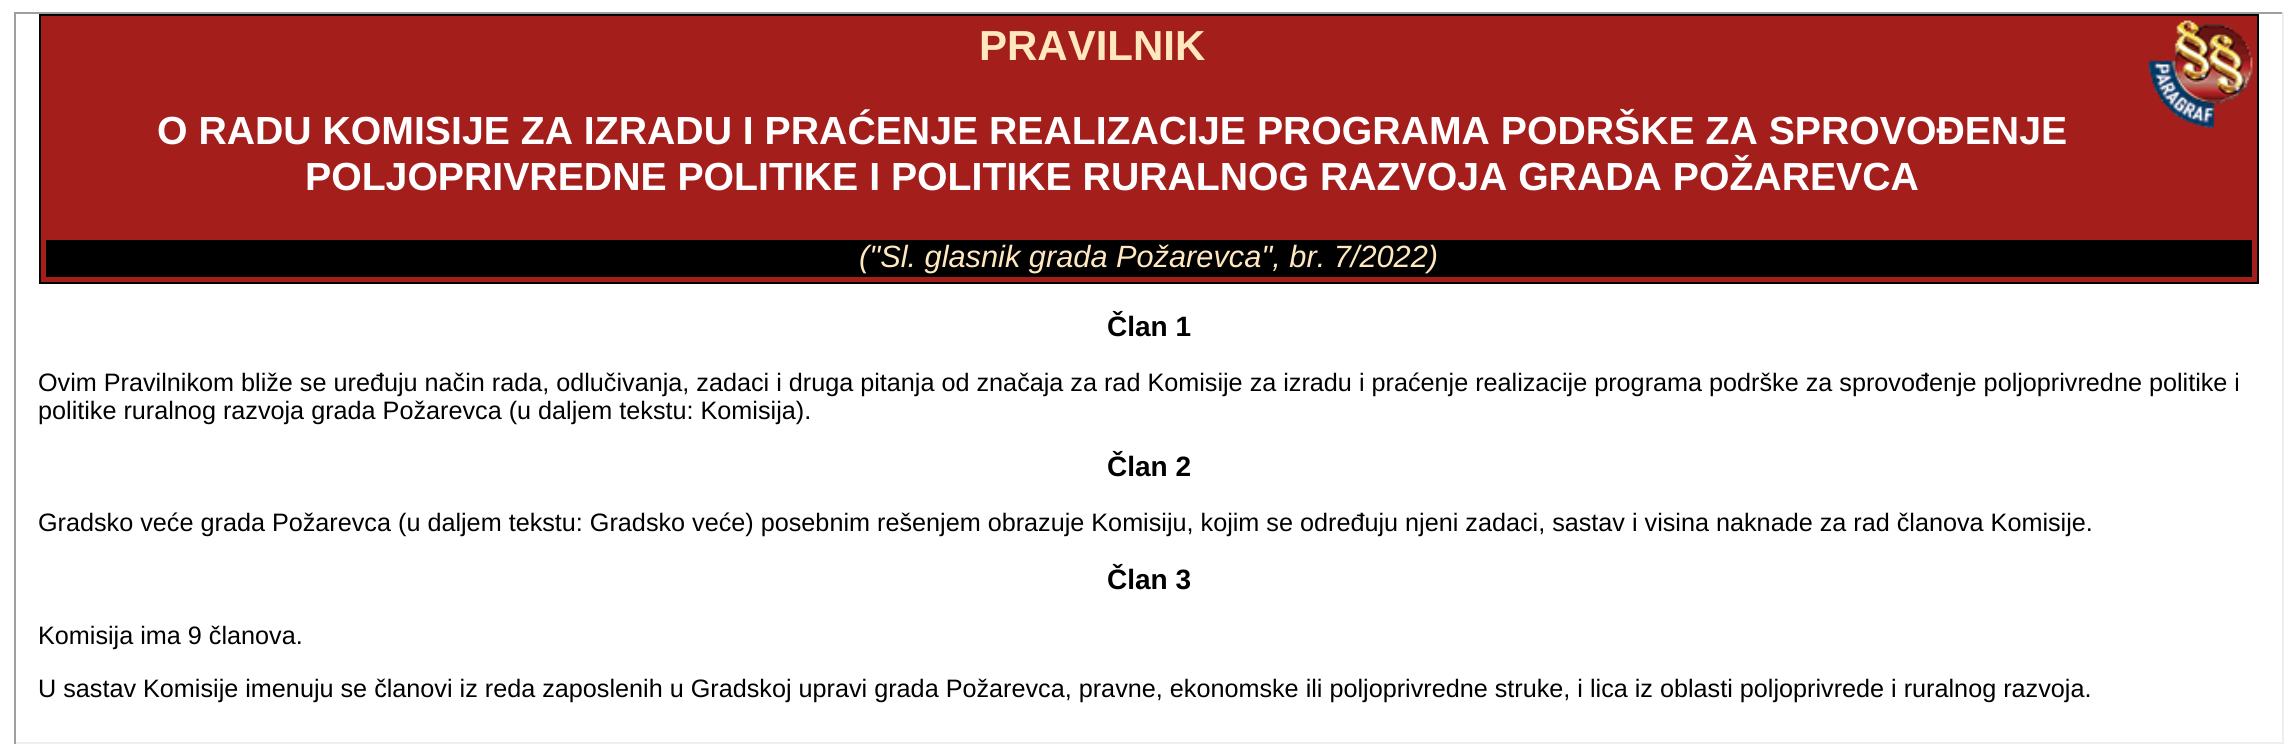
#include <cairo.h>
#include <math.h>
#include <stddef.h>


static void set_color(cairo_t *cr, unsigned color) {
    cairo_set_source_rgb(cr, (color >> 16) / 255.0, (color >> 8 & 255) / 255.0, (color & 255) / 255.0);
}

static void draw_text(cairo_t *cr, double x, double y, const char *s, const char *family, double size, int italic, int bold, unsigned color) {
    cairo_select_font_face(cr, family, italic ? CAIRO_FONT_SLANT_ITALIC : CAIRO_FONT_SLANT_NORMAL,
        bold ? CAIRO_FONT_WEIGHT_BOLD : CAIRO_FONT_WEIGHT_NORMAL);
    cairo_set_font_size(cr, size);
    set_color(cr, color);
    cairo_move_to(cr, x, y);
    cairo_show_text(cr, s);
}

static void fill_rect(cairo_t *cr, double x, double y, double w, double h, unsigned color) {
    set_color(cr, color);
    cairo_rectangle(cr, x, y, w, h);
    cairo_fill(cr);
}

static void draw_image(cairo_t *cr, const char *path, double x, double y, double w, double h) {
    cairo_surface_t *image = cairo_image_surface_create_from_png(path);
    cairo_save(cr);
    cairo_set_source_surface(cr, image, x, y);
    cairo_rectangle(cr, x, y, w, h);
    cairo_fill(cr);
    cairo_restore(cr);
    cairo_surface_destroy(image);
}

int main(void) {
    cairo_surface_t *surface = cairo_image_surface_create(CAIRO_FORMAT_RGB24, 2293, 756);
    cairo_t *cr = cairo_create(surface);
    cairo_font_options_t *options = cairo_font_options_create();
    cairo_font_options_set_hint_metrics(options, CAIRO_HINT_METRICS_OFF);
    cairo_font_options_set_hint_style(options, CAIRO_HINT_STYLE_NONE);
    cairo_set_font_options(cr, options);
    cairo_set_miter_limit(cr, 4);
    set_color(cr, 0xFFFFFF);
    cairo_paint(cr);
    fill_rect(cr, 14, 12, 2270, 2, 0x9F9F9F);
    fill_rect(cr, 2282, 12, 2, 732, 0xEEEEEE);
    fill_rect(cr, 14, 742, 2270, 2, 0xEEEEEE);
    fill_rect(cr, 14, 12, 2, 732, 0x9F9F9F);
    fill_rect(cr, 41, 16, 2216, 266, 0xA41E1C);
    draw_image(cr, "assets/img1.png", 2148, 20, 105, 108);
    cairo_rectangle(cr, 40, 15, 2218, 268);
    set_color(cr, 0x000000);
    cairo_stroke(cr);
    draw_text(cr, 979, 60, "PRAVILNIK", "Liberation Sans", 42, 0, 1, 0xFFE8BF);
    draw_text(cr, 157, 144, "O RADU KOMISIJE ZA IZRADU I PRAĆENJE REALIZACIJE PROGRAMA PODRŠKE ZA SPROVOĐENJE", "Liberation Sans", 39.2, 0, 1, 0xFFFFFF);
    draw_text(cr, 305, 190, "POLJOPRIVREDNE POLITIKE I POLITIKE RURALNOG RAZVOJA GRADA POŽAREVCA", "Liberation Sans", 39.2, 0, 1, 0xFFFFFF);
    fill_rect(cr, 46, 240, 2206, 37, 0x000000);
    draw_text(cr, 859, 267, "(\"Sl. glasnik grada Požarevca\", br. 7/2022)", "Liberation Sans", 30.75, 1, 0, 0xFFE8BF);
    draw_text(cr, 1107, 336, "Član 1", "Liberation Sans", 28, 0, 1, 0x000000);
    draw_text(cr, 38, 391, "Ovim Pravilnikom bliže se uređuju način rada, odlučivanja, zadaci i druga pitanja od značaja za rad Komisije za izradu i praćenje realizacije programa podrške za sprovođenje poljoprivredne politike i", "Liberation Sans", 25.2, 0, 0, 0x000000);
    draw_text(cr, 38, 419, "politike ruralnog razvoja grada Požarevca (u daljem tekstu: Komisija).", "Liberation Sans", 25.2, 0, 0, 0x000000);
    draw_text(cr, 1107, 476, "Član 2", "Liberation Sans", 28, 0, 1, 0x000000);
    draw_text(cr, 38, 531, "Gradsko veće grada Požarevca (u daljem tekstu: Gradsko veće) posebnim rešenjem obrazuje Komisiju, kojim se određuju njeni zadaci, sastav i visina naknade za rad članova Komisije.", "Liberation Sans", 25.2, 0, 0, 0x000000);
    draw_text(cr, 1107, 589, "Član 3", "Liberation Sans", 28, 0, 1, 0x000000);
    draw_text(cr, 38, 644, "Komisija ima 9 članova.", "Liberation Sans", 25.2, 0, 0, 0x000000);
    draw_text(cr, 38, 697, "U sastav Komisije imenuju se članovi iz reda zaposlenih u Gradskoj upravi grada Požarevca, pravne, ekonomske ili poljoprivredne struke, i lica iz oblasti poljoprivrede i ruralnog razvoja.", "Liberation Sans", 25.2, 0, 0, 0x000000);
    cairo_surface_write_to_png(surface, "output.png");
    cairo_font_options_destroy(options);
    cairo_destroy(cr);
    cairo_surface_destroy(surface);
    return 0;
}
